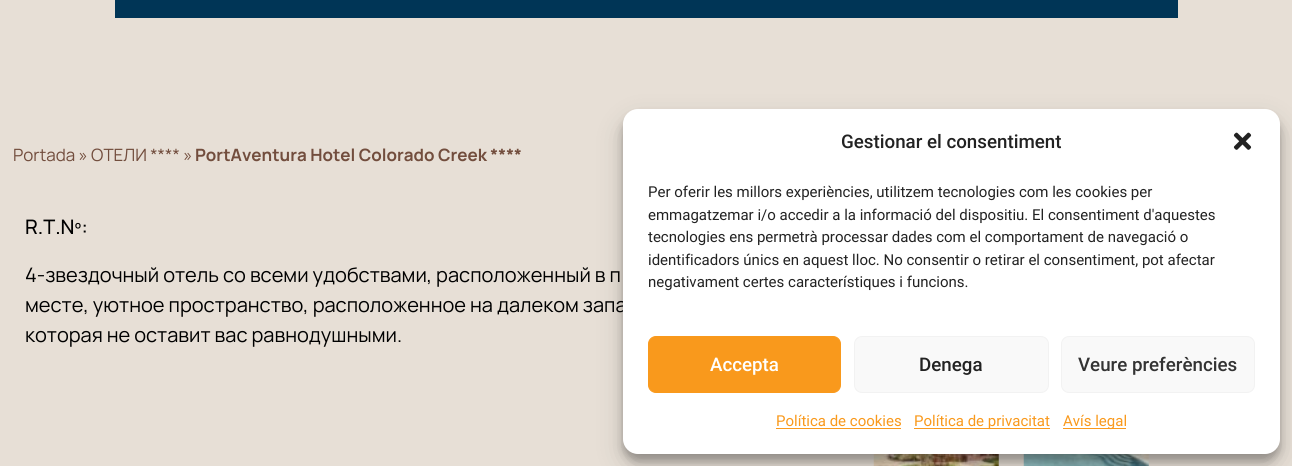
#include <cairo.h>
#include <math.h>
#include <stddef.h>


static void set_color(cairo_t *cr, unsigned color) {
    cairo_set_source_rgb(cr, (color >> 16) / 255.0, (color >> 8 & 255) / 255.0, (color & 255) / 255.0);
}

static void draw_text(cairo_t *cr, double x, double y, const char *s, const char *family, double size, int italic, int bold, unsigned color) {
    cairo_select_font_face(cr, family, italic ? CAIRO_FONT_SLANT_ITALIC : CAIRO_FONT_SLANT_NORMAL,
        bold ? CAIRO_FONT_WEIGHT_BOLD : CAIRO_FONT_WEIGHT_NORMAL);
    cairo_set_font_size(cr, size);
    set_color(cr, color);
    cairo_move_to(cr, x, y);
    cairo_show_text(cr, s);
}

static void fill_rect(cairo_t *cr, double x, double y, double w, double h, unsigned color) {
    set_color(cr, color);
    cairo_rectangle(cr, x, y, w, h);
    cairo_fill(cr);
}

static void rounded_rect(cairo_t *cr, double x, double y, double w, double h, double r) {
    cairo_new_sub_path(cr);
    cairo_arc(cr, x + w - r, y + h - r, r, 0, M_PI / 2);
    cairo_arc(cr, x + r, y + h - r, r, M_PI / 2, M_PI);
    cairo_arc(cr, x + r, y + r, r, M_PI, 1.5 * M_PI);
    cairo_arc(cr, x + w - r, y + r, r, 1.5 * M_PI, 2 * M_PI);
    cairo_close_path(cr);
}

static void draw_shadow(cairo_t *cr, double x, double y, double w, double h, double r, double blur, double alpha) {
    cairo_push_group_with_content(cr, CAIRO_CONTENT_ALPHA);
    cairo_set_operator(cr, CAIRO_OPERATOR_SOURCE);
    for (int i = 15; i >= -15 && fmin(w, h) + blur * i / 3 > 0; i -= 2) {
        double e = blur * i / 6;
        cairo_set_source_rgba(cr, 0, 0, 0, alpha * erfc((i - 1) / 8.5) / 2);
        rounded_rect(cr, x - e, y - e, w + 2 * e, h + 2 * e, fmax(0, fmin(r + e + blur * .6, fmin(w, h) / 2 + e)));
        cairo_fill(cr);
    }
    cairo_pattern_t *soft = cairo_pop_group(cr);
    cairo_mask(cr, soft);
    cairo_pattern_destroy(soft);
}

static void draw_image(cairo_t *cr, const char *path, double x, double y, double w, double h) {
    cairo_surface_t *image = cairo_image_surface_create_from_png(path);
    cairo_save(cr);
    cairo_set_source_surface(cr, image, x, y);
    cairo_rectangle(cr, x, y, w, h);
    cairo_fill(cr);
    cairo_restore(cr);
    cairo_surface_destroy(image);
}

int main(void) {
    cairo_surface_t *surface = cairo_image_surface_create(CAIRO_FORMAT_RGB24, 1292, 466);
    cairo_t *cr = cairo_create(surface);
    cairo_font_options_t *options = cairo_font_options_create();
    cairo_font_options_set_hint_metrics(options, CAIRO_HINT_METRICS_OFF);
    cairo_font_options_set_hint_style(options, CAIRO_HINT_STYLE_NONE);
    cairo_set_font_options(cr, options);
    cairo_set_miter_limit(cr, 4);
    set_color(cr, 0xE7DFD6);
    cairo_paint(cr);
    fill_rect(cr, 115, 0, 1063, 18, 0x003556);
    draw_text(cr, 13, 161, "Portada » ОТЕЛИ **** »", "Manrope", 17, 0, 0, 0x724D3D);
    draw_text(cr, 195, 161, "PortAventura Hotel Colorado Creek ****", "Manrope", 17, 0, 1, 0x724D3D);
    draw_text(cr, 25, 234, "R.T.Nº:", "Manrope Medium", 20, 0, 0, 0x000000);
    draw_text(cr, 25, 282, "4-звездочный отель со всеми удобствами, расположенный в п", "Manrope", 20, 0, 0, 0x000000);
    draw_text(cr, 25, 312, "месте, уютное пространство, расположенное на далеком запа", "Manrope", 20, 0, 0, 0x000000);
    draw_text(cr, 25, 342, "которая не оставит вас равнодушными.", "Manrope", 20, 0, 0, 0x000000);
    draw_image(cr, "assets/img1.png", 873, 454, 126, 12);
    draw_image(cr, "assets/img2.png", 1023, 454, 126, 12);
    set_color(cr, 0x000000);
    draw_shadow(cr, 623, 116, 657, 345, 15, 4, 0.23);
    draw_shadow(cr, 623, 121, 657, 345, 15, 12.5, 0.19);
    set_color(cr, 0xFFFFFF);
    rounded_rect(cr, 623, 109, 657, 345, 15);
    cairo_fill(cr);
    draw_text(cr, 841, 148, "Gestionar el consentiment", "Roboto Medium", 18.75, 0, 0, 0x222222);
    draw_image(cr, "assets/img3.png", 1233, 132, 19, 18);
    draw_text(cr, 648, 197, "Per oferir les millors experiències, utilitzem tecnologies com les cookies per", "Roboto", 15, 0, 0, 0x222222);
    draw_text(cr, 648, 220, "emmagatzemar i/o accedir a la informació del dispositiu. El consentiment d'aquestes", "Roboto", 15, 0, 0, 0x222222);
    draw_text(cr, 648, 242, "tecnologies ens permetrà processar dades com el comportament de navegació o", "Roboto", 15, 0, 0, 0x222222);
    draw_text(cr, 648, 265, "identificadors únics en aquest lloc. No consentir o retirar el consentiment, pot afectar", "Roboto", 15, 0, 0, 0x222222);
    draw_text(cr, 648, 287, "negativament certes característiques i funcions.", "Roboto", 15, 0, 0, 0x222222);
    set_color(cr, 0xF9991C);
    rounded_rect(cr, 648.5, 336.5, 192, 56, 7.5);
    cairo_fill_preserve(cr);
    cairo_set_line_width(cr, 1);
    cairo_stroke(cr);
    draw_text(cr, 710, 371, "Accepta", "Roboto Medium", 18.75, 0, 0, 0xFFFFFF);
    set_color(cr, 0xF9F9F9);
    rounded_rect(cr, 854.5, 336.5, 194, 56, 7.5);
    cairo_fill_preserve(cr);
    set_color(cr, 0xF2F2F2);
    cairo_stroke(cr);
    draw_text(cr, 919, 371, "Denega", "Roboto Medium", 18.75, 0, 0, 0x222222);
    set_color(cr, 0xF9F9F9);
    rounded_rect(cr, 1061.5, 336.5, 193, 56, 7.5);
    cairo_fill_preserve(cr);
    set_color(cr, 0xF2F2F2);
    cairo_stroke(cr);
    draw_text(cr, 1078, 371, "Veure preferències", "Roboto Medium", 18.75, 0, 0, 0x333333);
    draw_text(cr, 776, 426, "Política de cookies", "Roboto", 15, 0, 0, 0xF9991C);
    fill_rect(cr, 776, 428, 125, 1, 0xF9991C);
    fill_rect(cr, 914, 428, 136, 1, 0xF9991C);
    draw_text(cr, 914, 426, "Política de privacitat", "Roboto", 15, 0, 0, 0xF9991C);
    fill_rect(cr, 1063, 428, 63, 1, 0xF9991C);
    draw_text(cr, 1063, 426, "Avís legal", "Roboto", 15, 0, 0, 0xF9991C);
    cairo_surface_write_to_png(surface, "output.png");
    cairo_font_options_destroy(options);
    cairo_destroy(cr);
    cairo_surface_destroy(surface);
    return 0;
}
